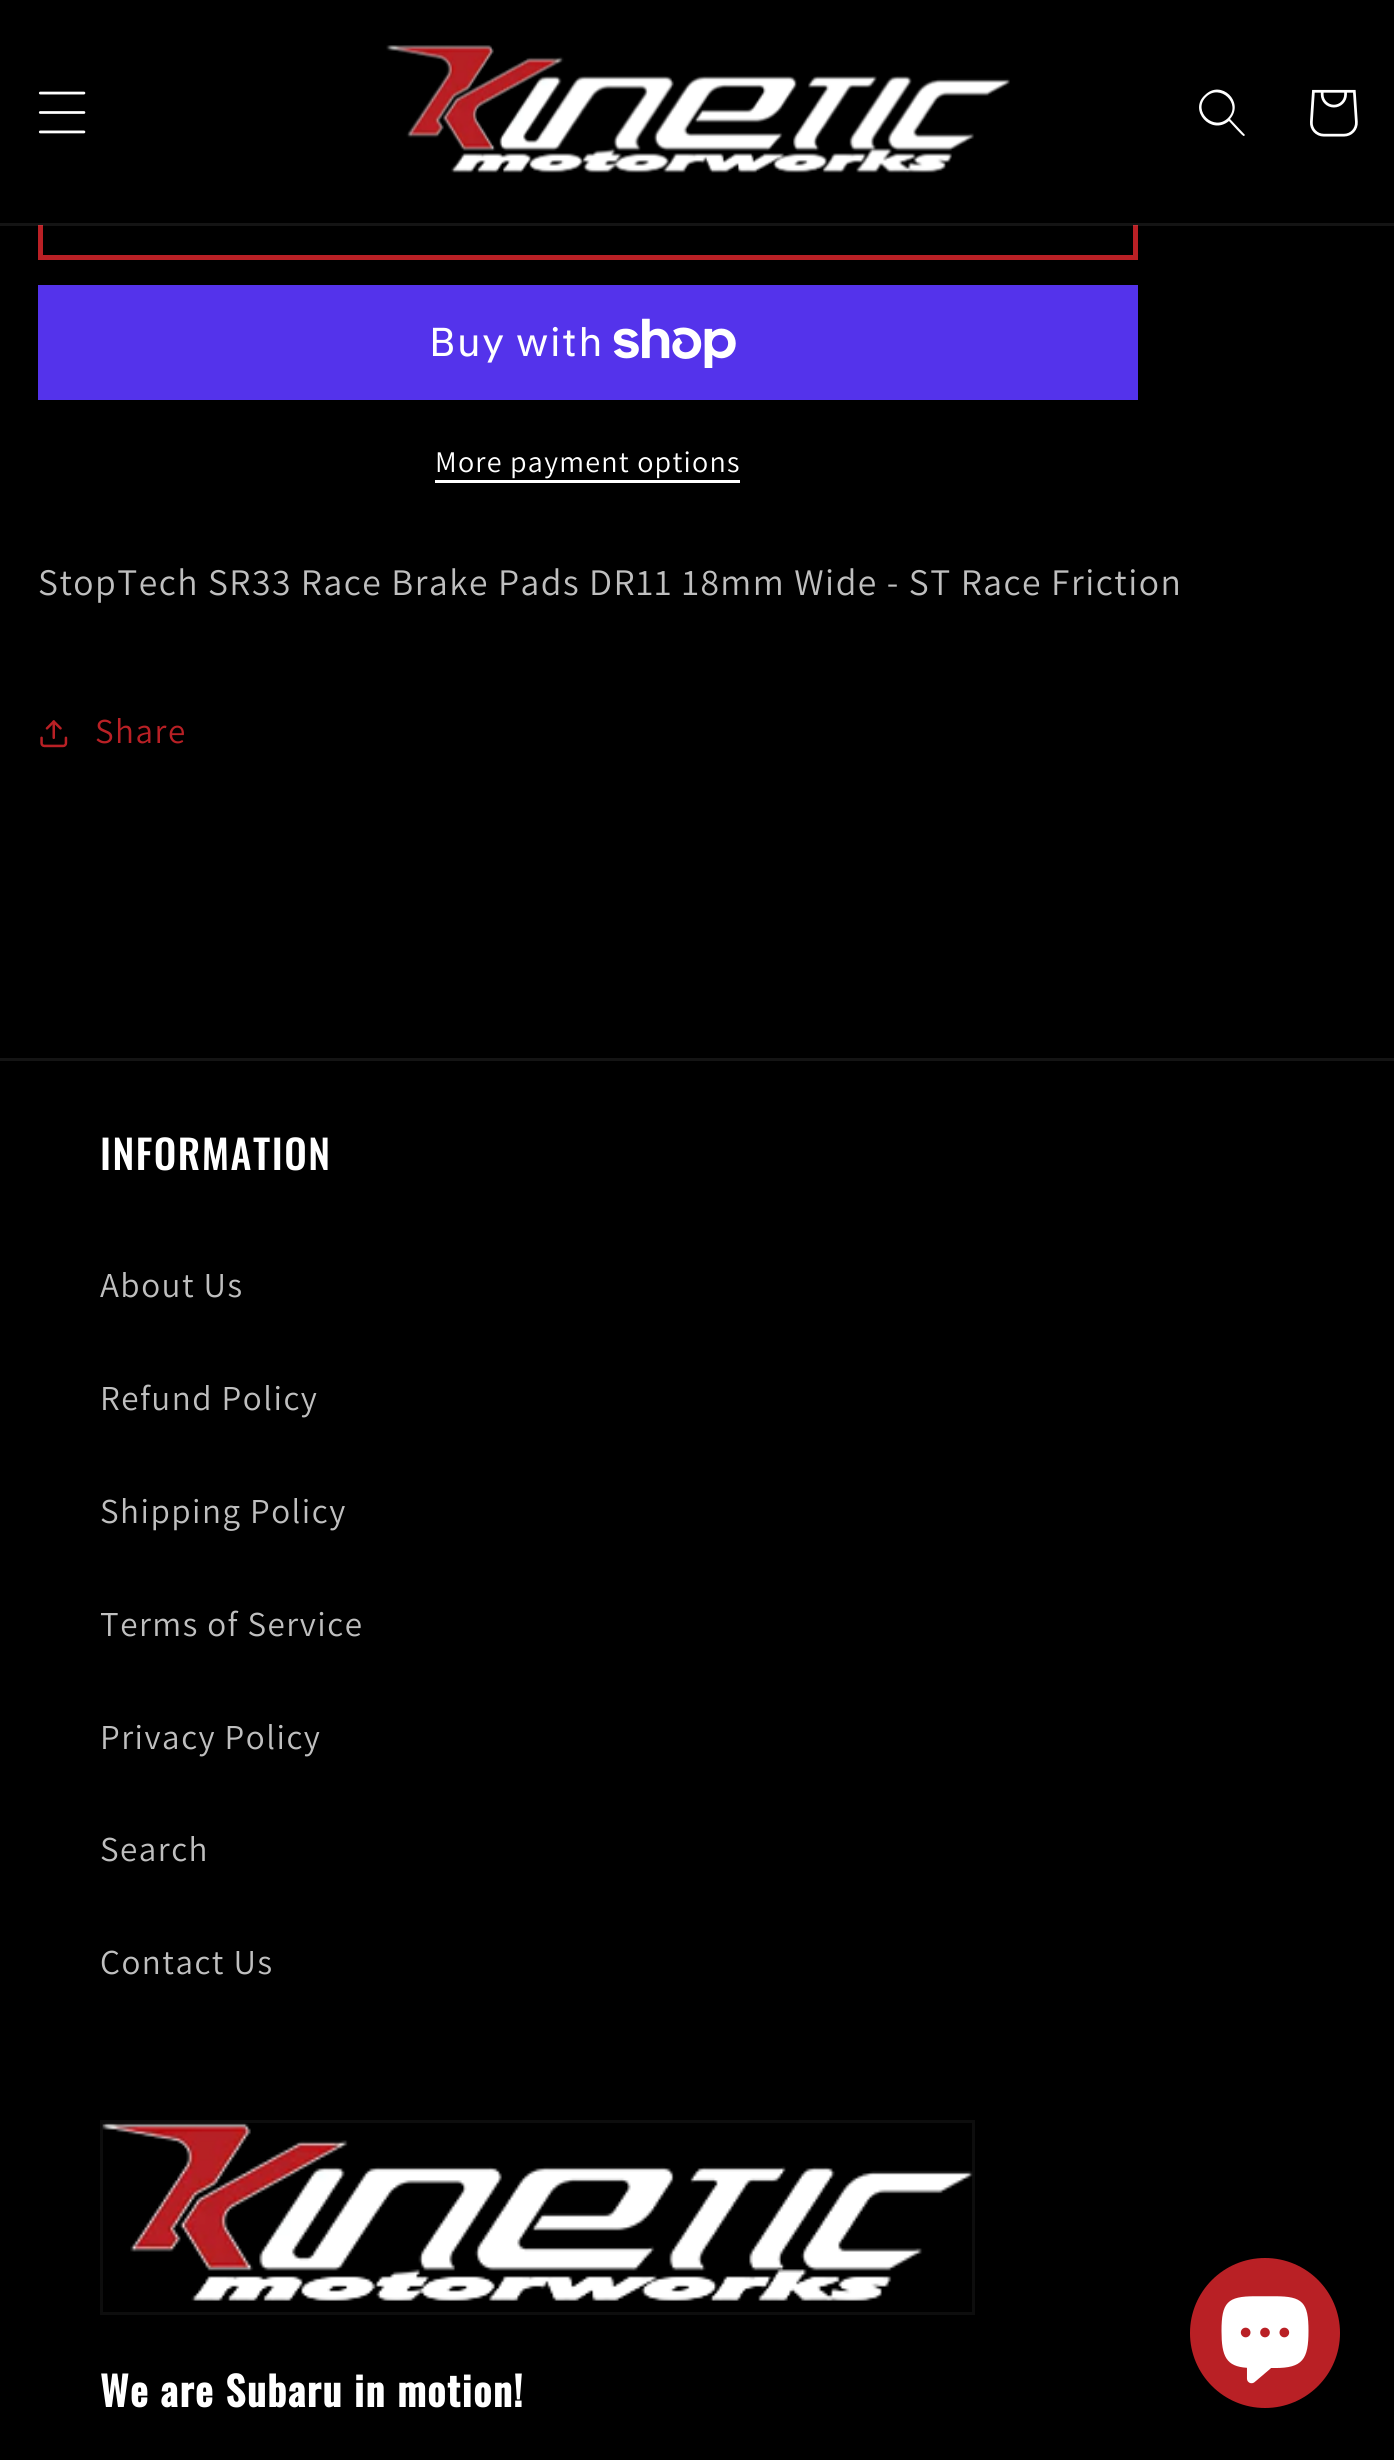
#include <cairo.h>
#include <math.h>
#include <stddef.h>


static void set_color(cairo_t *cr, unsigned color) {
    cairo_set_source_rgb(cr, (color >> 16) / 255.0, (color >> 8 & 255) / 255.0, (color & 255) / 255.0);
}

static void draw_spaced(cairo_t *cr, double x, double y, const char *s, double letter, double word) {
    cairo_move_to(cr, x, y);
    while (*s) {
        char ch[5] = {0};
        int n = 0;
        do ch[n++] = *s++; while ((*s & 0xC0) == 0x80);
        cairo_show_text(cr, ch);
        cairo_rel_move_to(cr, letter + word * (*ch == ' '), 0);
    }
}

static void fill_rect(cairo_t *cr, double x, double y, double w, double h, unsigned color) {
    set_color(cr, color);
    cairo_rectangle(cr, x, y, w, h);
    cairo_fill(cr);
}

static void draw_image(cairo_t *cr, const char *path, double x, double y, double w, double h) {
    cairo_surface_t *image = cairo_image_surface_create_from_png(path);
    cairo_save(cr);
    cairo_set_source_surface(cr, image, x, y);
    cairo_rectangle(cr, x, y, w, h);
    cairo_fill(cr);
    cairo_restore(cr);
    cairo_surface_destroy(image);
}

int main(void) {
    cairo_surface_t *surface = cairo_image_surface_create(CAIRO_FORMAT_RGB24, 1394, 2460);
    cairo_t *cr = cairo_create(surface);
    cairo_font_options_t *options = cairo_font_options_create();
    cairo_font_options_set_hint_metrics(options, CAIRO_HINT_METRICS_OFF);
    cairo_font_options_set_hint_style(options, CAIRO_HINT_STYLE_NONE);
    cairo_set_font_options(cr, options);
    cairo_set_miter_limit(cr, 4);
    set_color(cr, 0x000000);
    cairo_paint(cr);
    cairo_rectangle(cr, 40.5, 140.5, 1095, 117);
    set_color(cr, 0xB92025);
    cairo_set_line_width(cr, 5);
    cairo_stroke(cr);
    fill_rect(cr, 38, 138, 1100, 87, 0x000000);
    cairo_set_source_rgba(cr, 1, 1, 1, 0.08);
    cairo_rectangle(cr, 0, 223, 1394, 3);
    cairo_fill(cr);
    draw_image(cr, "assets/img1.png", 38, 91, 48, 43);
    draw_image(cr, "assets/img2.png", 386, 45, 624, 128);
    set_color(cr, 0xFFFFFF);
    cairo_set_fill_rule(cr, CAIRO_FILL_RULE_EVEN_ODD);
    cairo_new_path(cr);
    cairo_move_to(cr, 1228, 118);
    cairo_curve_to(cr, 1214, 132, 1192, 111, 1206, 97);
    cairo_curve_to(cr, 1220, 83, 1242, 104, 1228, 118);
    cairo_close_path(cr);
    cairo_move_to(cr, 1229, 121);
    cairo_curve_to(cr, 1211, 136, 1188, 110, 1205, 95);
    cairo_curve_to(cr, 1221, 79, 1245, 102, 1230, 119);
    cairo_line_to(cr, 1245, 135);
    cairo_line_to(cr, 1244, 136);
    cairo_curve_to(cr, 1243, 137, 1231, 123, 1229, 121);
    cairo_close_path(cr);
    cairo_fill(cr);
    draw_image(cr, "assets/img3.png", 1310, 89, 48, 48);
    fill_rect(cr, 38, 285, 1100, 115, 0x5433EB);
    cairo_select_font_face(cr, "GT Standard", CAIRO_FONT_SLANT_NORMAL, CAIRO_FONT_WEIGHT_NORMAL);
    cairo_set_font_size(cr, 40);
    set_color(cr, 0xFFFFFF);
    draw_spaced(cr, 429, 356, "Buy with", 1.5, 0);
    draw_image(cr, "assets/img4.png", 613, 318, 123, 50);
    cairo_select_font_face(cr, "Assistant", CAIRO_FONT_SLANT_NORMAL, CAIRO_FONT_WEIGHT_NORMAL);
    cairo_set_font_size(cr, 30);
    draw_spaced(cr, 435, 472, "More payment options", 1.25, 0);
    fill_rect(cr, 435, 480, 305, 3, 0xFFFFFF);
    cairo_set_font_size(cr, 37.5);
    set_color(cr, 0xBFBFBF);
    draw_spaced(cr, 38, 595, "StopTech SR33 Race Brake Pads DR11 18mm Wide - ST Race Friction", 1.5, 0);
    draw_image(cr, "assets/img5.png", 40, 720, 28, 28);
    cairo_set_font_size(cr, 35);
    set_color(cr, 0xB92025);
    draw_spaced(cr, 95, 743, "Share", 1.5, 0);
    fill_rect(cr, 0, 1058, 1394, 3, 0x141414);
    cairo_select_font_face(cr, "Oswald Medium", CAIRO_FONT_SLANT_NORMAL, CAIRO_FONT_WEIGHT_NORMAL);
    cairo_set_font_size(cr, 40);
    set_color(cr, 0xFFFFFF);
    draw_spaced(cr, 100, 1170, "INFORMATION", 1.5, 0);
    cairo_select_font_face(cr, "Assistant", CAIRO_FONT_SLANT_NORMAL, CAIRO_FONT_WEIGHT_NORMAL);
    cairo_set_font_size(cr, 35);
    set_color(cr, 0xBFBFBF);
    draw_spaced(cr, 100, 1297, "About Us", 1.5, 0);
    draw_spaced(cr, 100, 1410, "Refund Policy", 1.5, 0);
    draw_spaced(cr, 100, 1523, "Shipping Policy", 1.5, 0);
    draw_spaced(cr, 100, 1636, "Terms of Service", 1.5, 0);
    draw_spaced(cr, 100, 1749, "Privacy Policy", 1.5, 0);
    draw_spaced(cr, 100, 1861, "Search", 1.5, 0);
    draw_spaced(cr, 100, 1974, "Contact Us", 1.5, 0);
    cairo_rectangle(cr, 101.5, 2121.5, 872, 192);
    set_color(cr, 0x0D0D0D);
    cairo_set_line_width(cr, 3);
    cairo_stroke(cr);
    draw_image(cr, "assets/img6.png", 102, 2123, 871, 178);
    cairo_select_font_face(cr, "Oswald", CAIRO_FONT_SLANT_NORMAL, CAIRO_FONT_WEIGHT_BOLD);
    cairo_set_font_size(cr, 40);
    set_color(cr, 0xFFFFFF);
    draw_spaced(cr, 100, 2407, "We are Subaru in motion!", 1.5, 0);
    set_color(cr, 0xB92025);
    cairo_new_path(cr);
    cairo_arc(cr, 1265, 2333, 75, 0, 2 * M_PI);
    cairo_fill(cr);
    draw_image(cr, "assets/img7.png", 1221, 2296, 88, 88);
    cairo_surface_write_to_png(surface, "output.png");
    cairo_font_options_destroy(options);
    cairo_destroy(cr);
    cairo_surface_destroy(surface);
    return 0;
}
